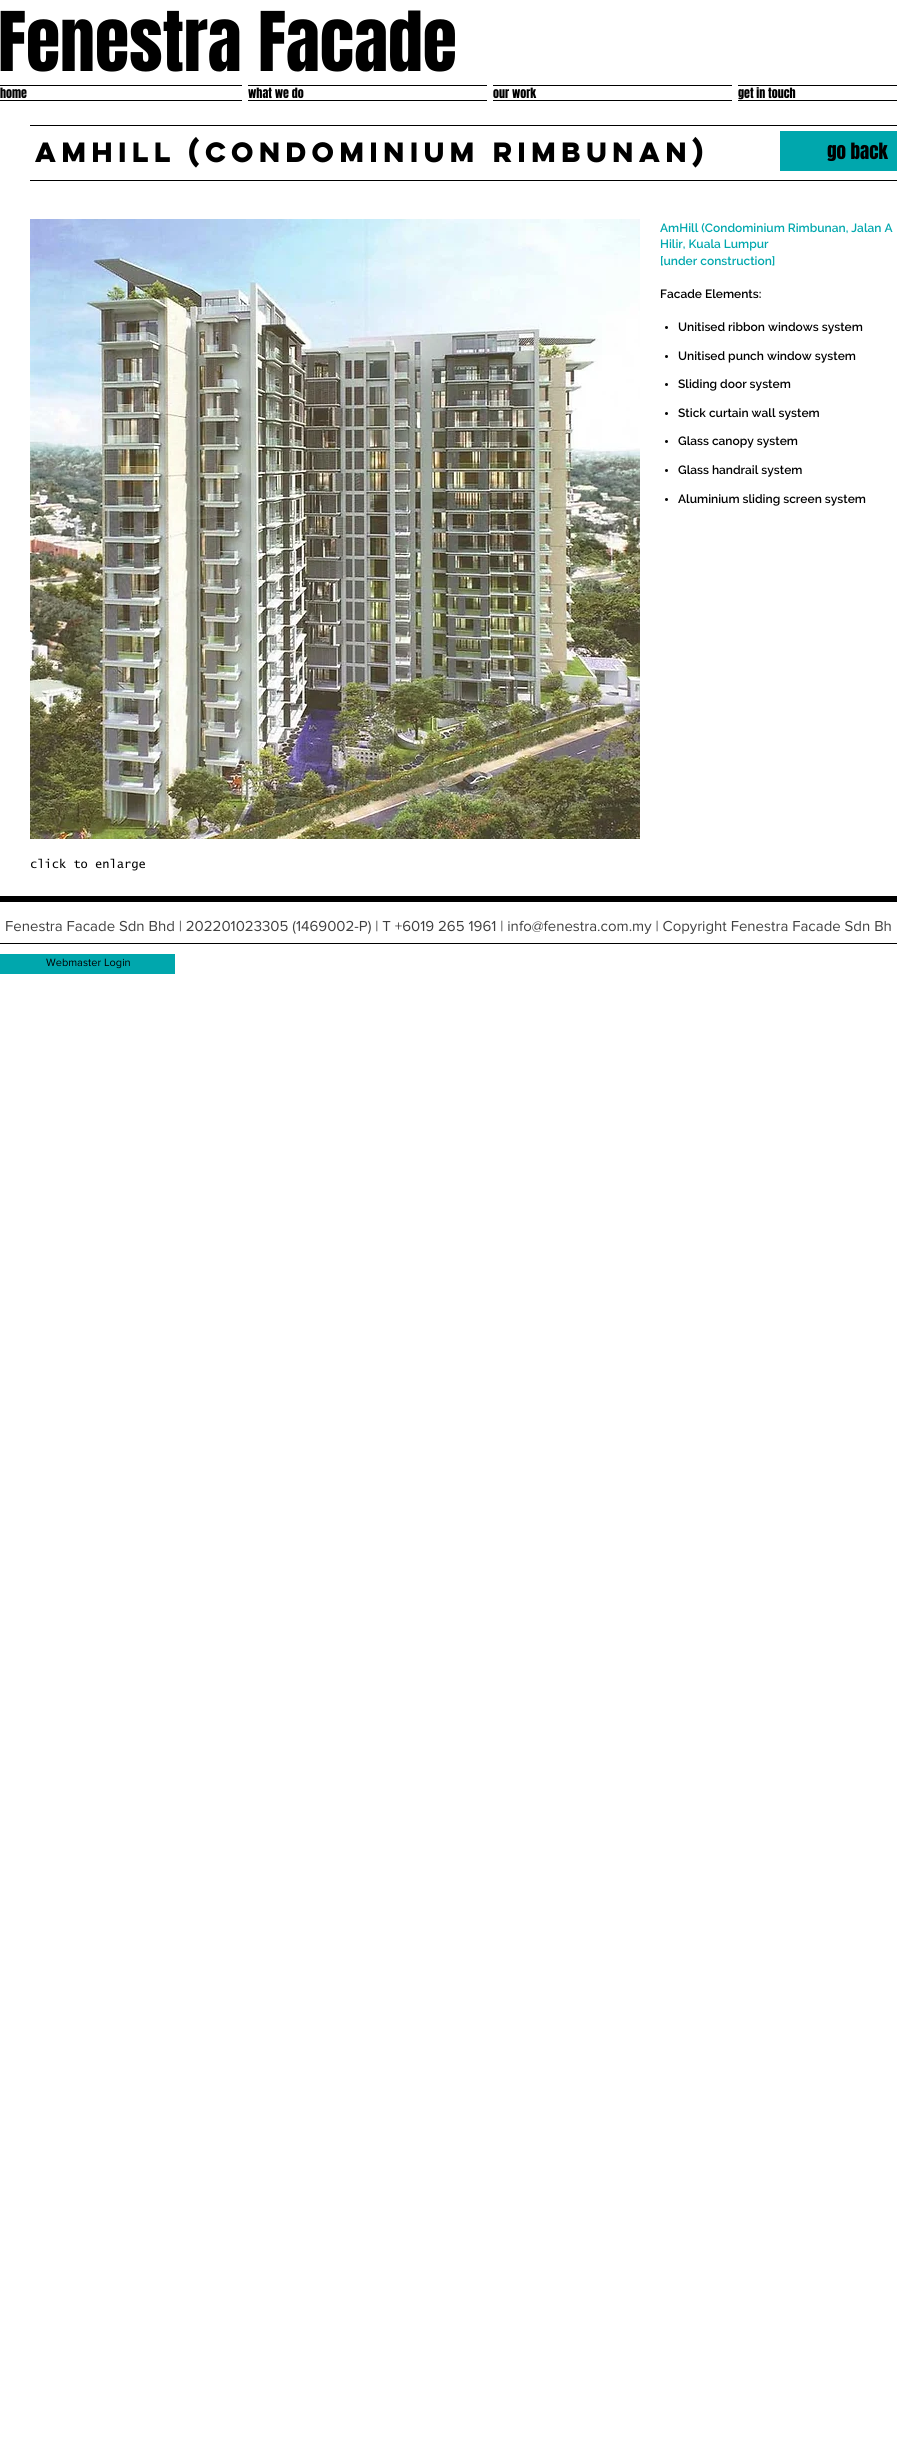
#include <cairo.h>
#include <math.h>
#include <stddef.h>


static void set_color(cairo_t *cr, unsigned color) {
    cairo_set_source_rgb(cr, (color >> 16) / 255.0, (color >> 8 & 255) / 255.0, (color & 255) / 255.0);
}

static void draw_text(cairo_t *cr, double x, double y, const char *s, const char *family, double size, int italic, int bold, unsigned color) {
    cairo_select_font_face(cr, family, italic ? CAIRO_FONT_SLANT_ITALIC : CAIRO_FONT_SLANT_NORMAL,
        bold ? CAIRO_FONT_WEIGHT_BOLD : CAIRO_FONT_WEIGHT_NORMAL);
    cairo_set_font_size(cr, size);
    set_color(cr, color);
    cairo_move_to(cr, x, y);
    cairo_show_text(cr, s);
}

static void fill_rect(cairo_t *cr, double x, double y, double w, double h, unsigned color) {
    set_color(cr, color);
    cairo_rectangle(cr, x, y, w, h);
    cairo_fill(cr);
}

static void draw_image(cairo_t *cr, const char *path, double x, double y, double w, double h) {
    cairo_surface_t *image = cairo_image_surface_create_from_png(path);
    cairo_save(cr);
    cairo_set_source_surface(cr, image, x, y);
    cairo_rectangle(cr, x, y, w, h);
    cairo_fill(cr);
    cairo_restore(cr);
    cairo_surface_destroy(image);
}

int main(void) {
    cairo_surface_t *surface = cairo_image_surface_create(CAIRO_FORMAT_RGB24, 897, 2451);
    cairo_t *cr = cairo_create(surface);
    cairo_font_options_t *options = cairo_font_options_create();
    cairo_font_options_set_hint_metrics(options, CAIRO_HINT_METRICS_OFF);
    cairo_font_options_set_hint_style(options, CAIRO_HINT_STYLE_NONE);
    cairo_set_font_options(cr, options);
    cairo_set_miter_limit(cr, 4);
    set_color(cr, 0xFFFFFF);
    cairo_paint(cr);
    draw_text(cr, -2, 71, "Fenestra Facade", "Anton", 70, 0, 0, 0x000000);
    fill_rect(cr, 0, 85, 242, 1, 0x000000);
    fill_rect(cr, 0, 100, 242, 1, 0x000000);
    draw_text(cr, 0, 98, "home", "Anton", 12, 0, 0, 0x000000);
    fill_rect(cr, 248, 85, 239, 1, 0x000000);
    fill_rect(cr, 248, 100, 239, 1, 0x000000);
    draw_text(cr, 248, 98, "what we do", "Anton", 12, 0, 0, 0x000000);
    fill_rect(cr, 493, 85, 239, 1, 0x000000);
    fill_rect(cr, 493, 100, 239, 1, 0x000000);
    draw_text(cr, 493, 98, "our work", "Anton", 12, 0, 0, 0x000000);
    fill_rect(cr, 738, 85, 159, 1, 0x000000);
    fill_rect(cr, 738, 100, 159, 1, 0x000000);
    draw_text(cr, 738, 98, "get in touch", "Anton", 12, 0, 0, 0x000000);
    fill_rect(cr, 30, 125, 867, 1, 0x000000);
    draw_text(cr, 35, 162, "amhill (condominium rimbunan)", "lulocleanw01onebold", 25, 0, 1, 0x000000);
    fill_rect(cr, 780, 131, 117, 40, 0x00A7AD);
    draw_text(cr, 827, 159, "go back", "Anton", 19, 0, 0, 0x000000);
    fill_rect(cr, 30, 180, 867, 1, 0x000000);
    draw_image(cr, "assets/img1.png", 30, 219, 610, 620);
    draw_text(cr, 660, 232, "AmHill (Condominium Rimbunan, Jalan A", "Raleway SemiBold", 12, 0, 0, 0x00A7AD);
    draw_text(cr, 660, 248, "Hilir, Kuala Lumpur", "Raleway SemiBold", 12, 0, 0, 0x00A7AD);
    draw_text(cr, 660, 265, "[under construction]", "Raleway SemiBold", 12, 0, 0, 0x00A7AD);
    draw_text(cr, 660, 298, "Facade Elements:", "Raleway SemiBold", 12, 0, 0, 0x000000);
    set_color(cr, 0x080808);
    cairo_new_path(cr);
    cairo_arc(cr, 666.5, 327.5, 1.5, 0, 2 * M_PI);
    cairo_fill(cr);
    draw_text(cr, 678, 331, "Unitised ribbon windows system", "Raleway SemiBold", 12, 0, 0, 0x000000);
    set_color(cr, 0x080808);
    cairo_new_path(cr);
    cairo_arc(cr, 666.5, 356.5, 1.5, 0, 2 * M_PI);
    cairo_fill(cr);
    draw_text(cr, 678, 360, "Unitised punch window system", "Raleway SemiBold", 12, 0, 0, 0x000000);
    set_color(cr, 0x080808);
    cairo_new_path(cr);
    cairo_arc(cr, 666.5, 384.5, 1.5, 0, 2 * M_PI);
    cairo_fill(cr);
    draw_text(cr, 678, 388, "Sliding door system", "Raleway SemiBold", 12, 0, 0, 0x000000);
    set_color(cr, 0x080808);
    cairo_new_path(cr);
    cairo_arc(cr, 666.5, 413.5, 1.5, 0, 2 * M_PI);
    cairo_fill(cr);
    draw_text(cr, 678, 417, "Stick curtain wall system", "Raleway SemiBold", 12, 0, 0, 0x000000);
    set_color(cr, 0x080808);
    cairo_new_path(cr);
    cairo_arc(cr, 666.5, 441.5, 1.5, 0, 2 * M_PI);
    cairo_fill(cr);
    draw_text(cr, 678, 445, "Glass canopy system", "Raleway SemiBold", 12, 0, 0, 0x000000);
    set_color(cr, 0x080808);
    cairo_new_path(cr);
    cairo_arc(cr, 666.5, 470.5, 1.5, 0, 2 * M_PI);
    cairo_fill(cr);
    draw_text(cr, 678, 474, "Glass handrail system", "Raleway SemiBold", 12, 0, 0, 0x000000);
    set_color(cr, 0x080808);
    cairo_new_path(cr);
    cairo_arc(cr, 666.5, 499.5, 1.5, 0, 2 * M_PI);
    cairo_fill(cr);
    draw_text(cr, 678, 503, "Aluminium sliding screen system", "Raleway SemiBold", 12, 0, 0, 0x000000);
    draw_text(cr, 30, 868, "click to enlarge", "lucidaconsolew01", 12, 0, 0, 0x000000);
    fill_rect(cr, 0, 896, 897, 6, 0x000000);
    draw_text(cr, 5, 931, "Fenestra Facade Sdn Bhd | 202201023305 (1469002-P) | T +6019 265 1961 | info@fenestra.com.my | Copyright Fenestra Facade Sdn Bh", "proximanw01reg", 15, 0, 0, 0x404040);
    fill_rect(cr, 0, 943, 897, 1, 0x000000);
    fill_rect(cr, 0, 954, 175, 20, 0x00A7AD);
    draw_text(cr, 46, 966, "Webmaster Login", "proximanw01reg", 11, 0, 0, 0x000000);
    cairo_surface_write_to_png(surface, "output.png");
    cairo_font_options_destroy(options);
    cairo_destroy(cr);
    cairo_surface_destroy(surface);
    return 0;
}
